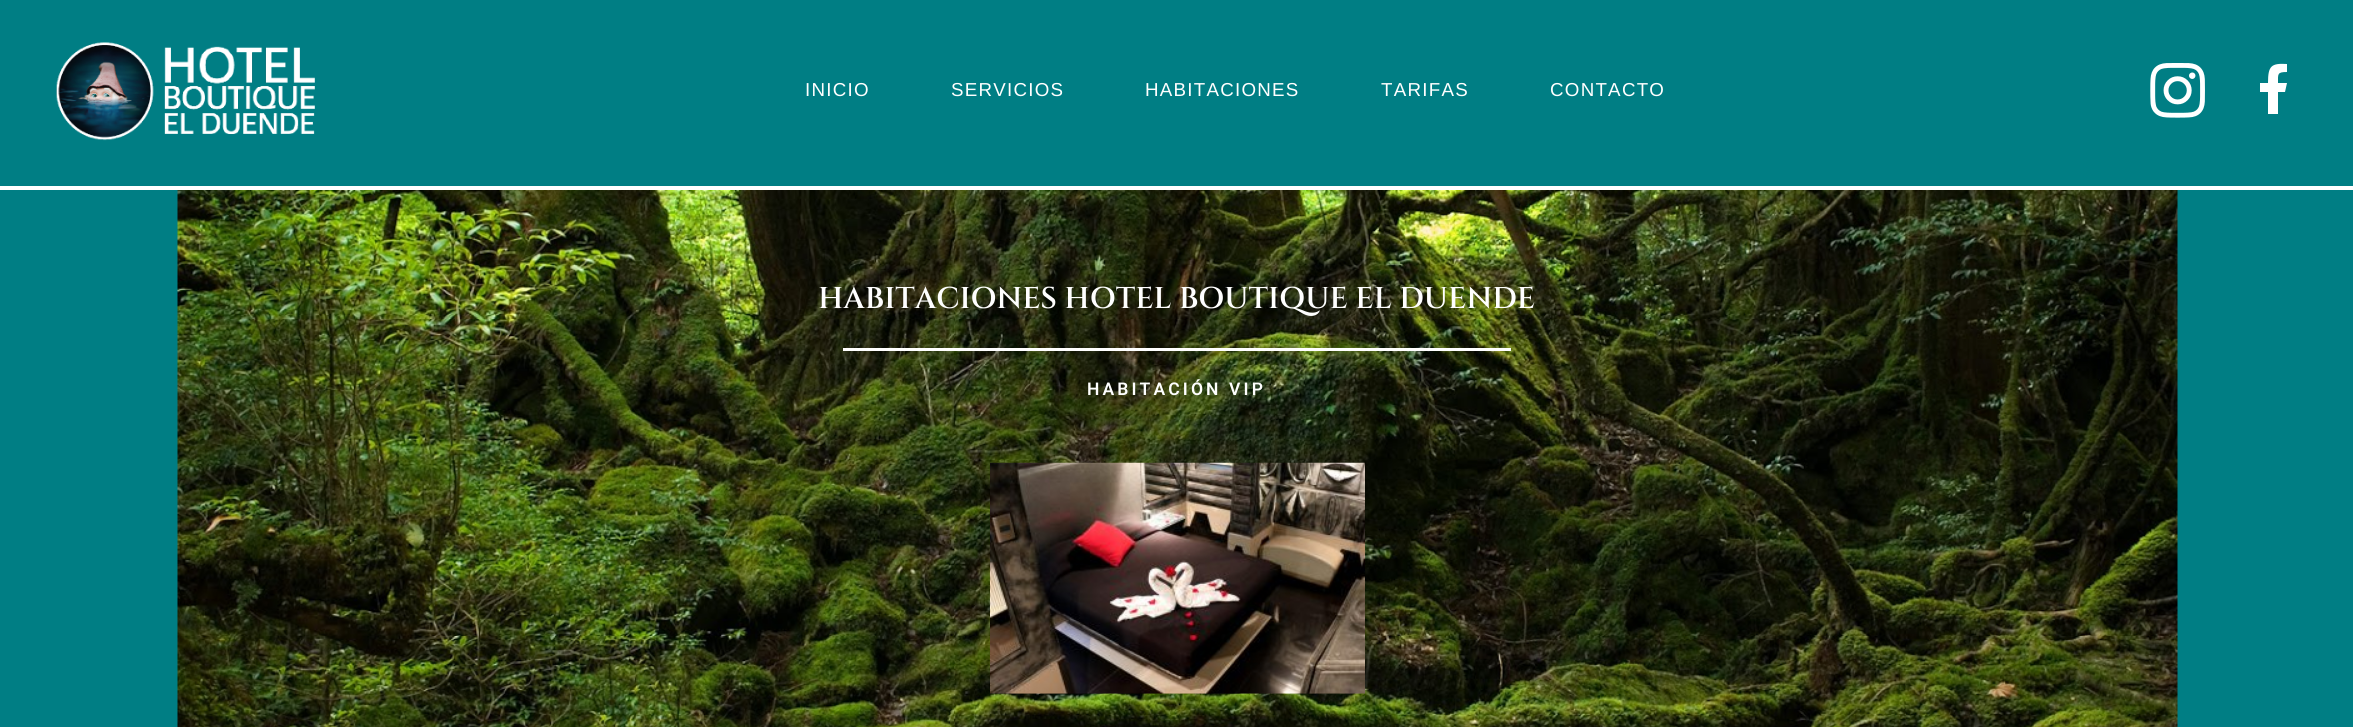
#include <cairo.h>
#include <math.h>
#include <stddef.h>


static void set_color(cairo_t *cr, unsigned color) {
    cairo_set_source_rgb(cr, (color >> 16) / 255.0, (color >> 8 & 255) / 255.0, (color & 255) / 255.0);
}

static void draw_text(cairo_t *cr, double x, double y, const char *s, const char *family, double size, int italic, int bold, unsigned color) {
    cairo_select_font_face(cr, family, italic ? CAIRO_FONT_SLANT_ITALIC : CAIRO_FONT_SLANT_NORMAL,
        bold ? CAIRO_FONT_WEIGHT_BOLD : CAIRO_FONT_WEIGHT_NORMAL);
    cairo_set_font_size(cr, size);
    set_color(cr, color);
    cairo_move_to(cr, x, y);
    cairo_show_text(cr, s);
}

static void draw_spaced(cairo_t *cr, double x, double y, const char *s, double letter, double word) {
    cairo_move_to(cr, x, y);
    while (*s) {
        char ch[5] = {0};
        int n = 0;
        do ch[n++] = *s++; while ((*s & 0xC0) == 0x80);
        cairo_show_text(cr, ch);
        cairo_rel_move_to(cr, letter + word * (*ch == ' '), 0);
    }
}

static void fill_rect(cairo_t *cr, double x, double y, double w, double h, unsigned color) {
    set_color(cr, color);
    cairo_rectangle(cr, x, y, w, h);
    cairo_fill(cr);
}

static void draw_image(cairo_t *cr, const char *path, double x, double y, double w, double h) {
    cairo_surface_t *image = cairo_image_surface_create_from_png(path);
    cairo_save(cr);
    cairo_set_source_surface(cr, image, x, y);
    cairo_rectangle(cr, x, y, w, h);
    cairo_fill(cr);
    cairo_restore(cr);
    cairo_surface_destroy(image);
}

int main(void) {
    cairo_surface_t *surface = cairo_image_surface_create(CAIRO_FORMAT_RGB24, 2353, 727);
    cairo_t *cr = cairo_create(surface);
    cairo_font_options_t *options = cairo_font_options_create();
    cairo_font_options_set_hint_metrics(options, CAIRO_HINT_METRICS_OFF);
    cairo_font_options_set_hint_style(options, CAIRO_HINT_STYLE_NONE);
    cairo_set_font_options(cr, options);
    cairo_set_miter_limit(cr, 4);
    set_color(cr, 0x007E84);
    cairo_paint(cr);
    draw_image(cr, "assets/img1.png", 56, 42, 259, 99);
    cairo_select_font_face(cr, "Liberation Sans", CAIRO_FONT_SLANT_NORMAL, CAIRO_FONT_WEIGHT_NORMAL);
    cairo_set_font_size(cr, 18.75);
    set_color(cr, 0xFFFFFF);
    draw_spaced(cr, 805, 96, "INICIO", 1.25, 0);
    draw_spaced(cr, 951, 96, "SERVICIOS", 1.25, 0);
    draw_spaced(cr, 1145, 96, "HABITACIONES", 1.25, 0);
    draw_spaced(cr, 1381, 96, "TARIFAS", 1.25, 0);
    draw_spaced(cr, 1550, 96, "CONTACTO", 1.25, 0);
    draw_image(cr, "assets/img2.png", 2150, 63, 55, 55);
    cairo_new_path(cr);
    cairo_move_to(cr, 2285, 92);
    cairo_line_to(cr, 2278, 92);
    cairo_line_to(cr, 2278, 114);
    cairo_line_to(cr, 2268, 114);
    cairo_line_to(cr, 2268, 92);
    cairo_line_to(cr, 2260, 92);
    cairo_line_to(cr, 2260, 83);
    cairo_line_to(cr, 2268, 83);
    cairo_curve_to(cr, 2268, 66, 2271, 63, 2287, 64);
    cairo_line_to(cr, 2287, 72);
    cairo_curve_to(cr, 2277, 72, 2278, 74, 2278, 83);
    cairo_line_to(cr, 2287, 83);
    cairo_close_path(cr);
    cairo_fill(cr);
    fill_rect(cr, 0, 186, 2353, 4, 0xFFFFFF);
    draw_image(cr, "assets/img3.png", 177, 190, 2001, 537);
    draw_text(cr, 818, 308, "HABITACIONES HOTEL BOUTIQUE EL DUENDE", "Cinzel SemiBold", 30, 0, 0, 0xFFFFFF);
    fill_rect(cr, 843, 348, 668, 3, 0xFFFFFF);
    cairo_select_font_face(cr, "Roboto SemiBold", CAIRO_FONT_SLANT_NORMAL, CAIRO_FONT_WEIGHT_NORMAL);
    cairo_set_font_size(cr, 17.5);
    draw_spaced(cr, 1087, 395, "HABITACIÓN VIP", 3.1, 0);
    draw_image(cr, "assets/img4.png", 990, 462, 375, 232);
    cairo_surface_write_to_png(surface, "output.png");
    cairo_font_options_destroy(options);
    cairo_destroy(cr);
    cairo_surface_destroy(surface);
    return 0;
}
